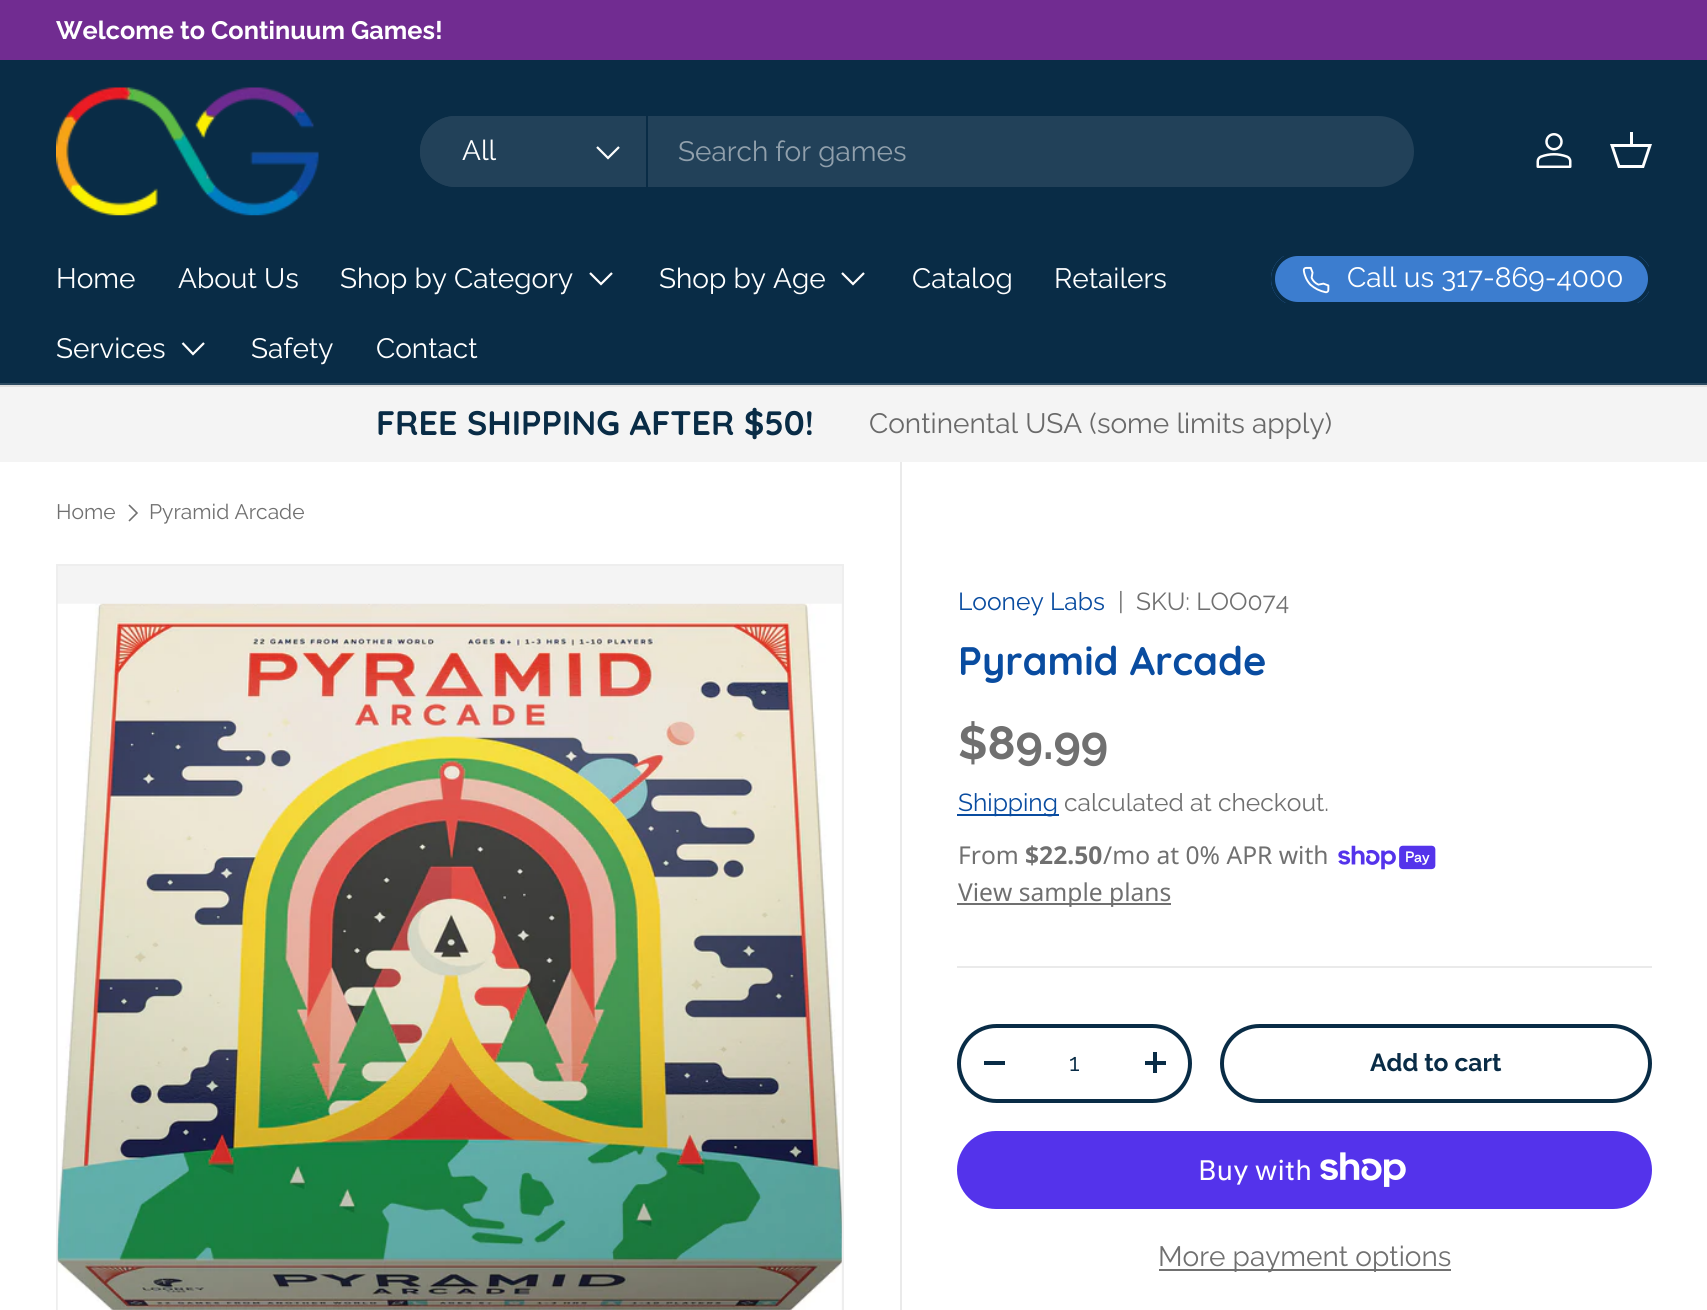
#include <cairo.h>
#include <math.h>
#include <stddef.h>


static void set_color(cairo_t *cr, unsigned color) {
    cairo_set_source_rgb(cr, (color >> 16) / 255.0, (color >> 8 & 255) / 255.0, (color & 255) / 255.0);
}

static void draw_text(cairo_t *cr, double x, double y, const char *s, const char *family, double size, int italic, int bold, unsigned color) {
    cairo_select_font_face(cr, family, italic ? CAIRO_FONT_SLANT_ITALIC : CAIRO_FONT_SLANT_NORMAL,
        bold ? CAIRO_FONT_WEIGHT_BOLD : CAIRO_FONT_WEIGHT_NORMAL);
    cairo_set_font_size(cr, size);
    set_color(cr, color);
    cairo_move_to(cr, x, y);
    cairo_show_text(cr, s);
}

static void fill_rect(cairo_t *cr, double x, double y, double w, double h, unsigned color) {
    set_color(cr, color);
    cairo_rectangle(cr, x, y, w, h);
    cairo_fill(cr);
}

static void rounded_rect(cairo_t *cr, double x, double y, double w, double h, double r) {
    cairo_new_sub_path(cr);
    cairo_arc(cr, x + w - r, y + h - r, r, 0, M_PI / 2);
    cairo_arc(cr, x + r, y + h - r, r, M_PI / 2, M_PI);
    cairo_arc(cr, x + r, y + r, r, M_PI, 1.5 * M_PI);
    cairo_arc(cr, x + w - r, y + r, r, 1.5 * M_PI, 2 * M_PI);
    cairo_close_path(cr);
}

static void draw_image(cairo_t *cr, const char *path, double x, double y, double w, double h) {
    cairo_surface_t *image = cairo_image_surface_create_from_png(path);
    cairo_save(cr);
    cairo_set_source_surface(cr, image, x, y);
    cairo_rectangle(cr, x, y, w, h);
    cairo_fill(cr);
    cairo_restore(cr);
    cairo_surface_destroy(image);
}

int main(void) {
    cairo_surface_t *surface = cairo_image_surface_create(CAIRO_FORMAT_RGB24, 1707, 1310);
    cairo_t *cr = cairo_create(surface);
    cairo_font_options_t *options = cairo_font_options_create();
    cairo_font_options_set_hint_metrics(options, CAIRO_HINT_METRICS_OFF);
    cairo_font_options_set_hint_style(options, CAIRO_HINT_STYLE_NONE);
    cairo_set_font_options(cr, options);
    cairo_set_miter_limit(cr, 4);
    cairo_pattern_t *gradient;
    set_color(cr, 0xFFFFFF);
    cairo_paint(cr);
    fill_rect(cr, 0, 0, 1707, 60, 0x712C91);
    draw_text(cr, 56, 39, "Welcome to Continuum Games!", "Raleway", 25.25, 0, 1, 0xFFFFFF);
    fill_rect(cr, 0, 60, 1707, 323, 0x092C46);
    fill_rect(cr, 0, 383, 1707, 2, 0x2E4C62);
    draw_image(cr, "assets/img1.png", 56, 87, 263, 129);
    set_color(cr, 0x224159);
    rounded_rect(cr, 420, 116, 994, 71, 35.5);
    cairo_fill(cr);
    cairo_new_path(cr);
    cairo_move_to(cr, 455.5, 116);
    cairo_line_to(cr, 648, 116);
    cairo_line_to(cr, 648, 187);
    cairo_line_to(cr, 455.5, 187);
    cairo_curve_to(cr, 436, 187, 420, 171, 420, 151.5);
    cairo_curve_to(cr, 420, 132, 436, 116, 455.5, 116);
    cairo_close_path(cr);
    cairo_fill(cr);
    fill_rect(cr, 646, 116, 2, 71, 0x092C46);
    draw_text(cr, 462, 160, "All", "Raleway", 28, 0, 0, 0xFFFFFF);
    cairo_new_path(cr);
    cairo_move_to(cr, 619, 147);
    cairo_line_to(cr, 608, 158);
    cairo_line_to(cr, 597, 147);
    cairo_set_line_width(cr, 2.2);
    cairo_stroke(cr);
    draw_text(cr, 678, 161, "Search for games", "Raleway", 28, 0, 0, 0x91A0AC);
    draw_image(cr, "assets/img2.png", 1536, 133, 36, 35);
    set_color(cr, 0xFFFFFF);
    cairo_new_path(cr);
    cairo_move_to(cr, 1630, 144);
    cairo_line_to(cr, 1630, 132);
    cairo_line_to(cr, 1633, 132);
    cairo_line_to(cr, 1633, 144);
    cairo_line_to(cr, 1652, 144);
    cairo_line_to(cr, 1644, 168);
    cairo_line_to(cr, 1618, 168);
    cairo_line_to(cr, 1610, 144);
    cairo_close_path(cr);
    cairo_move_to(cr, 1614, 147);
    cairo_line_to(cr, 1620, 165);
    cairo_line_to(cr, 1642, 165);
    cairo_line_to(cr, 1648, 147);
    cairo_close_path(cr);
    cairo_fill(cr);
    draw_text(cr, 56, 288, "Home", "Raleway", 28, 0, 0, 0xFFFFFF);
    draw_text(cr, 178, 288, "About Us", "Raleway", 28, 0, 0, 0xFFFFFF);
    draw_text(cr, 340, 288, "Shop by Category", "Raleway", 28, 0, 0, 0xFFFFFF);
    cairo_new_path(cr);
    cairo_move_to(cr, 612, 273);
    cairo_line_to(cr, 601, 284);
    cairo_line_to(cr, 590, 273);
    cairo_stroke(cr);
    draw_text(cr, 659, 288, "Shop by Age", "Raleway", 28, 0, 0, 0xFFFFFF);
    cairo_new_path(cr);
    cairo_move_to(cr, 864, 273);
    cairo_line_to(cr, 853, 284);
    cairo_line_to(cr, 842, 273);
    cairo_stroke(cr);
    draw_text(cr, 912, 288, "Catalog", "Raleway", 28, 0, 0, 0xFFFFFF);
    draw_text(cr, 1054, 288, "Retailers", "Raleway", 28, 0, 0, 0xFFFFFF);
    draw_text(cr, 56, 358, "Services", "Raleway", 28, 0, 0, 0xFFFFFF);
    cairo_new_path(cr);
    cairo_move_to(cr, 204, 343);
    cairo_line_to(cr, 193, 354);
    cairo_line_to(cr, 182.5, 343);
    cairo_stroke(cr);
    draw_text(cr, 251, 358, "Safety", "Raleway", 28, 0, 0, 0xFFFFFF);
    draw_text(cr, 376, 358, "Contact", "Raleway", 28, 0, 0, 0xFFFFFF);
    cairo_save(cr);
    rounded_rect(cr, 1271, 252, 381, 54, 27);
    cairo_clip(cr);
    gradient = cairo_pattern_create_linear(552, 146, 1621, 412);
    cairo_pattern_add_color_stop_rgba(gradient, 0.6, 0.396, 0.6, 0.851, 1);
    cairo_pattern_add_color_stop_rgba(gradient, 0.6, 0.235, 0.49, 0.812, 1);
    cairo_pattern_add_color_stop_rgba(gradient, 1, 0.235, 0.49, 0.812, 1);
    cairo_set_source(cr, gradient);
    cairo_pattern_destroy(gradient);
    cairo_rectangle(cr, 1271, 256, 378, 47);
    cairo_fill(cr);
    cairo_restore(cr);
    rounded_rect(cr, 1273, 254, 377, 50, 25);
    set_color(cr, 0x092C46);
    cairo_set_line_width(cr, 4);
    cairo_stroke(cr);
    draw_image(cr, "assets/img3.png", 1302, 266, 28, 28);
    draw_text(cr, 1347, 287, "Call us 317-869-4000", "Raleway", 28, 0, 0, 0xFFFFFF);
    fill_rect(cr, 0, 387, 1707, 75, 0xF4F4F4);
    fill_rect(cr, 0, 385, 1707, 2, 0xDFDFDF);
    draw_text(cr, 376, 435, "FREE SHIPPING AFTER $50!", "Quicksand", 34, 0, 1, 0x092C46);
    draw_text(cr, 869, 433, "Continental USA (some limits apply)", "Raleway", 28, 0, 0, 0x696969);
    draw_text(cr, 56, 519, "Home", "Raleway", 21, 0, 0, 0x707070);
    cairo_new_path(cr);
    cairo_move_to(cr, 129, 505);
    cairo_line_to(cr, 137, 513);
    cairo_line_to(cr, 129, 521);
    cairo_set_line_width(cr, 1.6);
    cairo_stroke(cr);
    draw_text(cr, 149, 519, "Pyramid Arcade", "Raleway", 21, 0, 0, 0x707070);
    set_color(cr, 0xF4F4F4);
    cairo_rectangle(cr, 57, 565, 786, 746);
    cairo_fill_preserve(cr);
    set_color(cr, 0xEEEEEE);
    cairo_set_line_width(cr, 2);
    cairo_stroke(cr);
    draw_image(cr, "assets/img4.png", 57, 603, 785, 707);
    fill_rect(cr, 900, 462, 2, 848, 0xEAEAEA);
    draw_text(cr, 958, 610, "Looney Labs", "Raleway", 24.6, 0, 0, 0x094CA0);
    draw_text(cr, 1118, 610, "|", "Raleway", 24.6, 0, 0, 0x707070);
    draw_text(cr, 1136, 610, "SKU: LOO074", "Raleway", 24.6, 0, 0, 0x707070);
    draw_text(cr, 958, 675, "Pyramid Arcade", "Quicksand", 39.75, 0, 1, 0x094CA0);
    draw_text(cr, 958, 759, "$89.99", "Raleway", 46.5, 0, 1, 0x707070);
    fill_rect(cr, 957, 814, 102, 2, 0x094CA0);
    draw_text(cr, 958, 811, "Shipping", "Raleway", 24.6, 0, 0, 0x094CA0);
    draw_text(cr, 1064, 811, "calculated at checkout.", "Raleway", 24.6, 0, 0, 0x707070);
    draw_text(cr, 958, 864, "From", "Noto Sans", 24.6, 0, 0, 0x707070);
    draw_text(cr, 1025, 864, "$22.50", "Noto Sans", 24.6, 0, 1, 0x707070);
    draw_text(cr, 1103, 864, "/mo at 0% APR with", "Noto Sans", 24.6, 0, 0, 0x707070);
    draw_image(cr, "assets/img5.png", 1338, 845, 98, 25);
    fill_rect(cr, 957, 903, 214, 2, 0x707070);
    draw_text(cr, 958, 901, "View sample plans", "Noto Sans", 24.6, 0, 0, 0x707070);
    fill_rect(cr, 957, 966, 695, 2, 0xEAEAEA);
    rounded_rect(cr, 959, 1026, 231, 75, 37.5);
    set_color(cr, 0x092C46);
    cairo_set_line_width(cr, 4);
    cairo_stroke(cr);
    fill_rect(cr, 984, 1061, 21, 4, 0x092C46);
    draw_text(cr, 1069, 1071, "1", "Raleway", 24.6, 0, 0, 0x092C46);
    fill_rect(cr, 1145, 1061, 21, 4, 0x092C46);
    fill_rect(cr, 1153, 1052, 4, 21, 0x092C46);
    rounded_rect(cr, 1222, 1026, 428, 75, 37.5);
    cairo_stroke(cr);
    draw_text(cr, 1370, 1071, "Add to cart", "Raleway", 24.6, 0, 1, 0x092C46);
    set_color(cr, 0x5433EB);
    rounded_rect(cr, 957, 1131, 695, 78, 39);
    cairo_fill(cr);
    draw_text(cr, 1198, 1180, "Buy with", "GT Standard", 28, 0, 0, 0xFFFFFF);
    draw_image(cr, "assets/img6.png", 1320, 1152, 86, 35);
    fill_rect(cr, 1159, 1269, 292, 2, 0x707070);
    draw_text(cr, 1158, 1266, "More payment options", "Raleway", 28, 0, 0, 0x707070);
    cairo_surface_write_to_png(surface, "output.png");
    cairo_font_options_destroy(options);
    cairo_destroy(cr);
    cairo_surface_destroy(surface);
    return 0;
}
